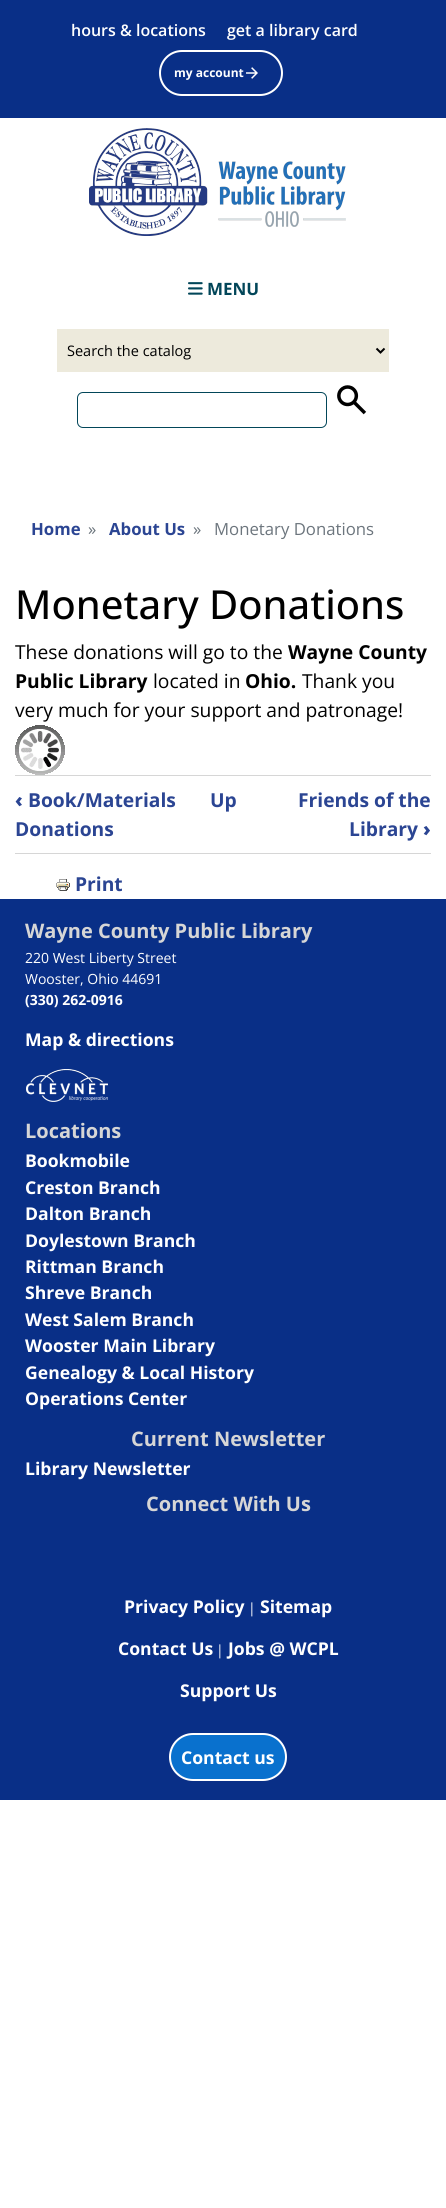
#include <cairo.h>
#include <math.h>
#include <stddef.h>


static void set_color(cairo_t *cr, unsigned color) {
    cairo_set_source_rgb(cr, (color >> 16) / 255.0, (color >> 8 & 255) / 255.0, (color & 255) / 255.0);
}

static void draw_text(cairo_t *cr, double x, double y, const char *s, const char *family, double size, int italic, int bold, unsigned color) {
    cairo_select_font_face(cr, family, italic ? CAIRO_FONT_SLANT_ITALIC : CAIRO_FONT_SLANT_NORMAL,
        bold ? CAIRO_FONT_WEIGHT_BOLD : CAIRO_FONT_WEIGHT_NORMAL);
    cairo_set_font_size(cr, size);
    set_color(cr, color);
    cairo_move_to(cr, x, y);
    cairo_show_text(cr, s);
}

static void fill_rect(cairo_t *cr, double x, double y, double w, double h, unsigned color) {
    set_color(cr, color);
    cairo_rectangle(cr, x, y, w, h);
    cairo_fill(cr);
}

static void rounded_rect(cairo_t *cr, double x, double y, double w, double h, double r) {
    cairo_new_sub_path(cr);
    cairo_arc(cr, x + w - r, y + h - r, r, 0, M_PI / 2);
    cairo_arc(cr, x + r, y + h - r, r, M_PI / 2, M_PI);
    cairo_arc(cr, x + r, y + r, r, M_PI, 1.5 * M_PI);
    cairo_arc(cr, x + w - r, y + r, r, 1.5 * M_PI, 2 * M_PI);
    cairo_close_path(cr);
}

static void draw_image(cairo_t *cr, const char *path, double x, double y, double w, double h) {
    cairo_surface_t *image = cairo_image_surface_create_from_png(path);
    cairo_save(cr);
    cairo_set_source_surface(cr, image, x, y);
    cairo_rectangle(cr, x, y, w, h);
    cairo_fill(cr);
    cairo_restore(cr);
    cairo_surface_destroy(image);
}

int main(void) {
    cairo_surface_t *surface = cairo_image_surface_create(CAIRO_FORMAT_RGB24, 446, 2208);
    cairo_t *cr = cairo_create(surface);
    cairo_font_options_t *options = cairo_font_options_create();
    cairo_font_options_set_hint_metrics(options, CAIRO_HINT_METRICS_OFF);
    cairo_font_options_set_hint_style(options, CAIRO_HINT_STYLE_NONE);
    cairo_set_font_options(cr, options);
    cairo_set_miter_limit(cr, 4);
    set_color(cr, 0xFFFFFF);
    cairo_paint(cr);
    fill_rect(cr, 0, 0, 446, 118, 0x092F87);
    draw_text(cr, 71, 36, "hours & locations", "Open Sans SemiBold", 16, 0, 0, 0xFFFFFF);
    draw_text(cr, 227, 36, "get a library card", "Open Sans SemiBold", 16, 0, 0, 0xFFFFFF);
    rounded_rect(cr, 160, 51, 122, 44, 22);
    cairo_stroke(cr);
    draw_text(cr, 174, 77, "my account", "Open Sans", 12, 0, 1, 0xFFFFFF);
    draw_image(cr, "assets/img1.png", 246, 67, 12, 12);
    draw_image(cr, "assets/img2.png", 89, 128, 257, 108);
    draw_image(cr, "assets/img3.png", 188, 282, 15, 13);
    draw_text(cr, 207, 295, "MENU", "Open Sans", 17, 0, 1, 0x024659);
    fill_rect(cr, 57, 329, 332, 43, 0xEDEADC);
    cairo_new_path(cr);
    cairo_move_to(cr, 376.5, 348.5);
    cairo_line_to(cr, 380.5, 352.5);
    cairo_line_to(cr, 384.5, 348.5);
    set_color(cr, 0x000000);
    cairo_stroke(cr);
    draw_text(cr, 67, 356, "Search the catalog", "Open Sans", 14.5, 0, 0, 0x000000);
    rounded_rect(cr, 77.5, 392.5, 249, 35, 5.5);
    set_color(cr, 0x024659);
    cairo_set_line_width(cr, 1);
    cairo_stroke(cr);
    draw_image(cr, "assets/img4.png", 337, 385, 30, 30);
    draw_text(cr, 31, 535, "Home", "Open Sans", 16.75, 0, 1, 0x2B4593);
    draw_text(cr, 88, 535, "»", "Open Sans", 16.75, 0, 0, 0x6C757D);
    draw_text(cr, 109, 535, "About Us", "Open Sans", 16.75, 0, 1, 0x2B4593);
    draw_text(cr, 193, 535, "»", "Open Sans", 16.75, 0, 0, 0x6C757D);
    draw_text(cr, 214, 535, "Monetary Donations", "Open Sans", 16.75, 0, 0, 0x6C757D);
    draw_text(cr, 15, 619, "Monetary Donations", "Open Sans Medium", 40, 0, 0, 0x000000);
    draw_text(cr, 15, 659, "These donations will go to the", "Open Sans", 19.25, 0, 0, 0x000000);
    draw_text(cr, 288, 659, "Wayne County", "Open Sans", 19.25, 0, 1, 0x000000);
    draw_text(cr, 15, 688, "Public Library", "Open Sans", 19.25, 0, 1, 0x000000);
    draw_text(cr, 153, 688, "located in", "Open Sans", 19.25, 0, 0, 0x000000);
    draw_text(cr, 245, 688, "Ohio.", "Open Sans", 19.25, 0, 1, 0x000000);
    draw_text(cr, 302, 688, "Thank you", "Open Sans", 19.25, 0, 0, 0x000000);
    draw_text(cr, 15, 717, "very much for your support and patronage!", "Open Sans", 19.25, 0, 0, 0x000000);
    draw_image(cr, "assets/img5.png", 15, 725, 50, 50);
    fill_rect(cr, 15, 775, 416, 1, 0xD6D6D6);
    fill_rect(cr, 15, 853, 416, 1, 0xD6D6D6);
    draw_text(cr, 15, 807, "‹", "Open Sans ExtraBold", 19.25, 0, 0, 0x2B4593);
    draw_text(cr, 28, 807, "Book/Materials", "Open Sans", 19.25, 0, 1, 0x2B4593);
    draw_text(cr, 15, 836, "Donations", "Open Sans", 19.25, 0, 1, 0x2B4593);
    draw_text(cr, 210, 807, "Up", "Open Sans", 19.25, 0, 1, 0x2B4593);
    draw_text(cr, 298, 807, "Friends of the", "Open Sans", 19.25, 0, 1, 0x2B4593);
    draw_text(cr, 349, 836, "Library", "Open Sans", 19.25, 0, 1, 0x2B4593);
    draw_text(cr, 423, 836, "›", "Open Sans ExtraBold", 19.25, 0, 0, 0x2B4593);
    draw_image(cr, "assets/img6.png", 56, 879, 14, 12);
    draw_text(cr, 75, 891, "Print", "Open Sans", 19.25, 0, 1, 0x2B4593);
    fill_rect(cr, 0, 899, 446, 901, 0x092F87);
    draw_text(cr, 25, 938, "Wayne County Public Library", "Open Sans", 20, 0, 1, 0xD6D6D6);
    draw_text(cr, 25, 963, "220 West Liberty Street", "Open Sans", 14, 0, 0, 0xFFFFFF);
    draw_text(cr, 25, 984, "Wooster, Ohio 44691", "Open Sans", 14, 0, 0, 0xFFFFFF);
    draw_text(cr, 25, 1005, "(330) 262-0916", "Open Sans", 14, 0, 1, 0xFFFFFF);
    draw_text(cr, 25, 1046, "Map & directions", "Open Sans", 17.6, 0, 1, 0xFFFFFF);
    draw_image(cr, "assets/img7.png", 26, 1069, 82, 33);
    draw_text(cr, 25, 1138, "Locations", "Open Sans", 20, 0, 1, 0xD6D6D6);
    draw_text(cr, 25, 1167, "Bookmobile", "Open Sans", 17.6, 0, 1, 0xFFFFFF);
    draw_text(cr, 25, 1194, "Creston Branch", "Open Sans", 17.6, 0, 1, 0xFFFFFF);
    draw_text(cr, 25, 1220, "Dalton Branch", "Open Sans", 17.6, 0, 1, 0xFFFFFF);
    draw_text(cr, 25, 1247, "Doylestown Branch", "Open Sans", 17.6, 0, 1, 0xFFFFFF);
    draw_text(cr, 25, 1273, "Rittman Branch", "Open Sans", 17.6, 0, 1, 0xFFFFFF);
    draw_text(cr, 25, 1299, "Shreve Branch", "Open Sans", 17.6, 0, 1, 0xFFFFFF);
    draw_text(cr, 25, 1326, "West Salem Branch", "Open Sans", 17.6, 0, 1, 0xFFFFFF);
    draw_text(cr, 25, 1352, "Wooster Main Library", "Open Sans", 17.6, 0, 1, 0xFFFFFF);
    draw_text(cr, 25, 1379, "Genealogy & Local History", "Open Sans", 17.6, 0, 1, 0xFFFFFF);
    draw_text(cr, 25, 1405, "Operations Center", "Open Sans", 17.6, 0, 1, 0xFFFFFF);
    draw_text(cr, 131, 1446, "Current Newsletter", "Open Sans", 20, 0, 1, 0xD6D6D6);
    draw_text(cr, 25, 1475, "Library Newsletter", "Open Sans", 17.6, 0, 1, 0xFFFFFF);
    draw_text(cr, 146, 1511, "Connect With Us", "Open Sans", 20, 0, 1, 0xD6D6D6);
    draw_text(cr, 124, 1613, "Privacy Policy", "Open Sans", 17.6, 0, 1, 0xFFFFFF);
    draw_text(cr, 248, 1613, "|", "Open Sans", 14, 0, 0, 0xFFFFFF);
    draw_text(cr, 260, 1613, "Sitemap", "Open Sans", 17.6, 0, 1, 0xFFFFFF);
    draw_text(cr, 118, 1655, "Contact Us", "Open Sans", 17.6, 0, 1, 0xFFFFFF);
    draw_text(cr, 216, 1655, "|", "Open Sans", 14, 0, 0, 0xFFFFFF);
    draw_text(cr, 228, 1655, "Jobs @ WCPL", "Open Sans", 17.6, 0, 1, 0xFFFFFF);
    draw_text(cr, 180, 1697, "Support Us", "Open Sans", 17.6, 0, 1, 0xFFFFFF);
    set_color(cr, 0x0971CE);
    rounded_rect(cr, 170, 1734, 116, 46, 23);
    cairo_fill_preserve(cr);
    set_color(cr, 0xFFFFFF);
    cairo_set_line_width(cr, 2);
    cairo_stroke(cr);
    draw_text(cr, 181, 1764, "Contact us", "Open Sans", 17.6, 0, 1, 0xFFFFFF);
    cairo_surface_write_to_png(surface, "output.png");
    cairo_font_options_destroy(options);
    cairo_destroy(cr);
    cairo_surface_destroy(surface);
    return 0;
}
